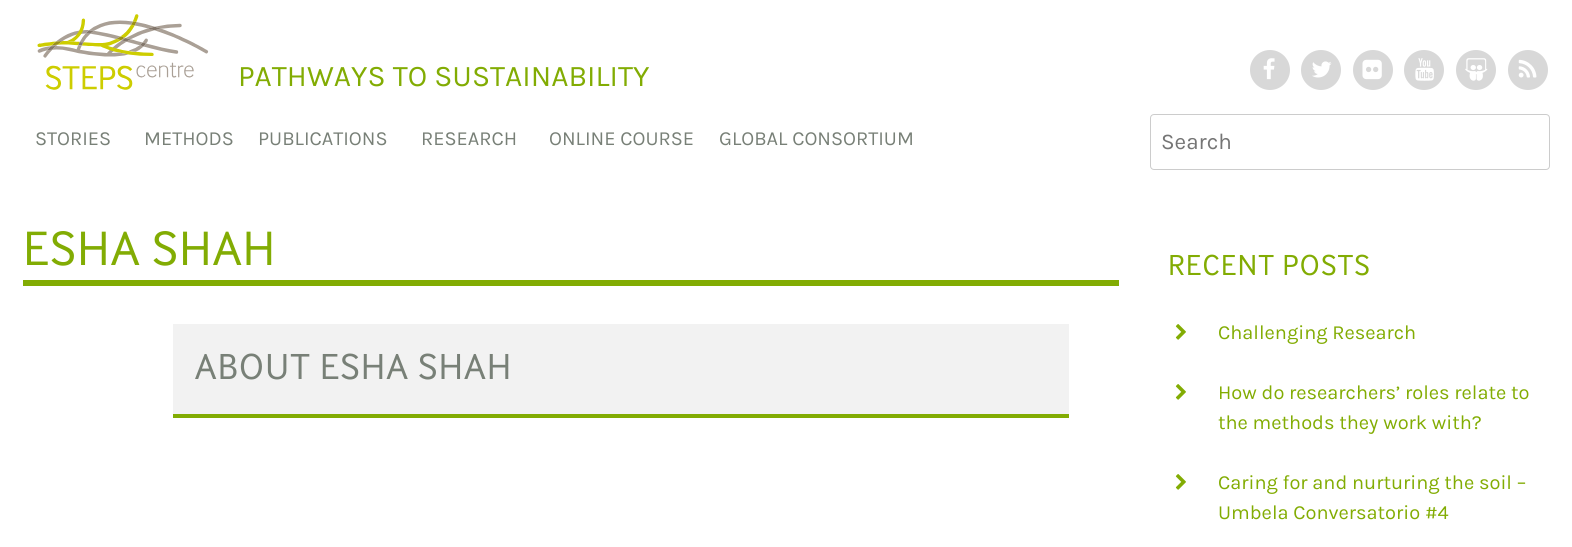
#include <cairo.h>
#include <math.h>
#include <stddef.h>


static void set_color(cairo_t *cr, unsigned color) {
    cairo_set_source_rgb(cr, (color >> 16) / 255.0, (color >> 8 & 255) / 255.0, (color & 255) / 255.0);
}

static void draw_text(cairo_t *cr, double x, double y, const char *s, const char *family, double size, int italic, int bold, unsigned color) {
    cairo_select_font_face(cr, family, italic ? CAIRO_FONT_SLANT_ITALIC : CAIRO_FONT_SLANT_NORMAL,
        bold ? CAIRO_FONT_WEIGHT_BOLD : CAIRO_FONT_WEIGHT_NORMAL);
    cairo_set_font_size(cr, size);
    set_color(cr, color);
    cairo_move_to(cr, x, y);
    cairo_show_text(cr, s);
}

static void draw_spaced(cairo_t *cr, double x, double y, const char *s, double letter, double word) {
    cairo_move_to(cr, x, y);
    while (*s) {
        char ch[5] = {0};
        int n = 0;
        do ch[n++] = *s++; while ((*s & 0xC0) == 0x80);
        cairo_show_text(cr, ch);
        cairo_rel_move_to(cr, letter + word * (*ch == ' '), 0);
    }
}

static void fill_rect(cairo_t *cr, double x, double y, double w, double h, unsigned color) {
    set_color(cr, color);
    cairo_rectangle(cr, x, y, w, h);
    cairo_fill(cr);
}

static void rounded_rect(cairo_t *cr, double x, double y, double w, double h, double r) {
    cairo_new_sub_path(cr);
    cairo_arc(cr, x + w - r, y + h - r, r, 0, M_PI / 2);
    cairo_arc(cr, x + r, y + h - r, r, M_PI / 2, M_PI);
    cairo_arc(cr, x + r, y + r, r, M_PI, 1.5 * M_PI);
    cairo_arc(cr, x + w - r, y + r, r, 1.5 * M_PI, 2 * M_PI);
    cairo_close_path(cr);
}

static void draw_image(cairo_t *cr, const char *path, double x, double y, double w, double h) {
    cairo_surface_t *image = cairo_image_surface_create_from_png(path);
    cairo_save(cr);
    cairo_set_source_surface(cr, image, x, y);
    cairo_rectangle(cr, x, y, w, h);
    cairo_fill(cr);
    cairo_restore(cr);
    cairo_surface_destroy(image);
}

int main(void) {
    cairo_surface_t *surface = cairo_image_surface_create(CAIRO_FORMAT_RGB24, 1572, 547);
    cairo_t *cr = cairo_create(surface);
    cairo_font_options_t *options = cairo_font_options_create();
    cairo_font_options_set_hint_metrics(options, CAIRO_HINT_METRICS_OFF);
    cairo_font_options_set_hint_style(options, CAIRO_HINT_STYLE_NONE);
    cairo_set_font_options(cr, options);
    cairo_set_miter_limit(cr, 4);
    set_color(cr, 0xFFFFFF);
    cairo_paint(cr);
    draw_image(cr, "assets/img1.png", 37, 14, 172, 76);
    draw_text(cr, 238, 86, "PATHWAYS TO SUSTAINABILITY", "Karla", 30, 0, 0, 0x82AC03);
    set_color(cr, 0xD8D8D8);
    cairo_new_path(cr);
    cairo_arc(cr, 1270, 70, 20, 0, 2 * M_PI);
    cairo_fill(cr);
    draw_image(cr, "assets/img2.png", 1263, 58, 12, 22);
    cairo_arc(cr, 1321, 70, 20, 0, 2 * M_PI);
    cairo_fill(cr);
    draw_image(cr, "assets/img3.png", 1312, 61, 20, 17);
    cairo_arc(cr, 1373, 70, 20, 0, 2 * M_PI);
    cairo_fill(cr);
    draw_image(cr, "assets/img4.png", 1362, 59, 20, 21);
    cairo_arc(cr, 1424, 70, 20, 0, 2 * M_PI);
    cairo_fill(cr);
    draw_image(cr, "assets/img5.png", 1415, 58, 19, 23);
    cairo_arc(cr, 1476, 70, 20, 0, 2 * M_PI);
    cairo_fill(cr);
    draw_image(cr, "assets/img6.png", 1465, 58, 23, 23);
    cairo_arc(cr, 1528, 70, 20, 0, 2 * M_PI);
    cairo_fill(cr);
    draw_image(cr, "assets/img7.png", 1518, 59, 19, 19);
    draw_text(cr, 35, 145, "STORIES", "Karla", 20, 0, 0, 0x788077);
    draw_text(cr, 144, 145, "METHODS", "Karla", 20, 0, 0, 0x788077);
    draw_text(cr, 258, 145, "PUBLICATIONS", "Karla", 20, 0, 0, 0x788077);
    draw_text(cr, 421, 145, "RESEARCH", "Karla", 20, 0, 0, 0x788077);
    draw_text(cr, 549, 145, "ONLINE COURSE", "Karla", 20, 0, 0, 0x788077);
    draw_text(cr, 719, 145, "GLOBAL CONSORTIUM", "Karla", 20, 0, 0, 0x788077);
    rounded_rect(cr, 1150.5, 114.5, 399, 55, 3.5);
    set_color(cr, 0xCCCCCC);
    cairo_set_line_width(cr, 1);
    cairo_stroke(cr);
    draw_text(cr, 1161, 149, "Search", "Karla", 22.5, 0, 0, 0x757575);
    fill_rect(cr, 23, 280, 1096, 6, 0x82AC03);
    cairo_select_font_face(cr, "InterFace", CAIRO_FONT_SLANT_NORMAL, CAIRO_FONT_WEIGHT_NORMAL);
    cairo_set_font_size(cr, 50);
    draw_spaced(cr, 23, 265, "ESHA SHAH", 1.25, 0);
    fill_rect(cr, 173, 324, 896, 90, 0xF2F2F2);
    fill_rect(cr, 173, 414, 896, 4, 0x82AC03);
    cairo_set_font_size(cr, 37.5);
    set_color(cr, 0x788077);
    draw_spaced(cr, 195, 379, "ABOUT ESHA SHAH", 1.25, 0);
    cairo_set_font_size(cr, 30);
    set_color(cr, 0x82AC03);
    draw_spaced(cr, 1168, 275, "RECENT POSTS", 1.25, 0);
    draw_image(cr, "assets/img8.png", 1175, 324, 11, 16);
    draw_text(cr, 1218, 339, "Challenging Research", "Karla", 20, 0, 0, 0x82AC03);
    draw_image(cr, "assets/img8.png", 1175, 384, 11, 16);
    draw_text(cr, 1218, 399, "How do researchers’ roles relate to", "Karla", 20, 0, 0, 0x82AC03);
    draw_text(cr, 1218, 429, "the methods they work with?", "Karla", 20, 0, 0, 0x82AC03);
    draw_image(cr, "assets/img8.png", 1175, 474, 11, 16);
    draw_text(cr, 1218, 489, "Caring for and nurturing the soil –", "Karla", 20, 0, 0, 0x82AC03);
    draw_text(cr, 1218, 519, "Umbela Conversatorio #4", "Karla", 20, 0, 0, 0x82AC03);
    cairo_surface_write_to_png(surface, "output.png");
    cairo_font_options_destroy(options);
    cairo_destroy(cr);
    cairo_surface_destroy(surface);
    return 0;
}
